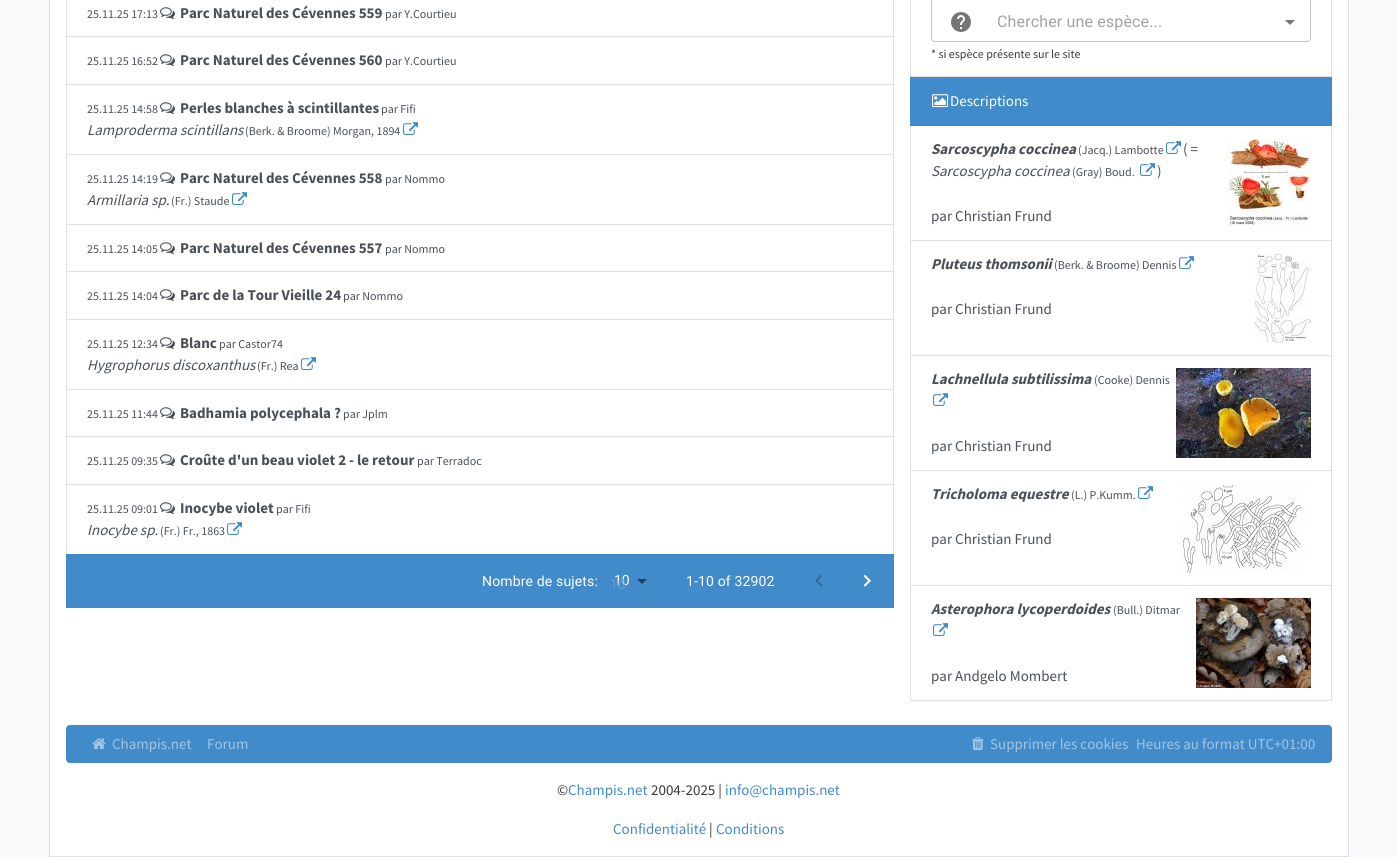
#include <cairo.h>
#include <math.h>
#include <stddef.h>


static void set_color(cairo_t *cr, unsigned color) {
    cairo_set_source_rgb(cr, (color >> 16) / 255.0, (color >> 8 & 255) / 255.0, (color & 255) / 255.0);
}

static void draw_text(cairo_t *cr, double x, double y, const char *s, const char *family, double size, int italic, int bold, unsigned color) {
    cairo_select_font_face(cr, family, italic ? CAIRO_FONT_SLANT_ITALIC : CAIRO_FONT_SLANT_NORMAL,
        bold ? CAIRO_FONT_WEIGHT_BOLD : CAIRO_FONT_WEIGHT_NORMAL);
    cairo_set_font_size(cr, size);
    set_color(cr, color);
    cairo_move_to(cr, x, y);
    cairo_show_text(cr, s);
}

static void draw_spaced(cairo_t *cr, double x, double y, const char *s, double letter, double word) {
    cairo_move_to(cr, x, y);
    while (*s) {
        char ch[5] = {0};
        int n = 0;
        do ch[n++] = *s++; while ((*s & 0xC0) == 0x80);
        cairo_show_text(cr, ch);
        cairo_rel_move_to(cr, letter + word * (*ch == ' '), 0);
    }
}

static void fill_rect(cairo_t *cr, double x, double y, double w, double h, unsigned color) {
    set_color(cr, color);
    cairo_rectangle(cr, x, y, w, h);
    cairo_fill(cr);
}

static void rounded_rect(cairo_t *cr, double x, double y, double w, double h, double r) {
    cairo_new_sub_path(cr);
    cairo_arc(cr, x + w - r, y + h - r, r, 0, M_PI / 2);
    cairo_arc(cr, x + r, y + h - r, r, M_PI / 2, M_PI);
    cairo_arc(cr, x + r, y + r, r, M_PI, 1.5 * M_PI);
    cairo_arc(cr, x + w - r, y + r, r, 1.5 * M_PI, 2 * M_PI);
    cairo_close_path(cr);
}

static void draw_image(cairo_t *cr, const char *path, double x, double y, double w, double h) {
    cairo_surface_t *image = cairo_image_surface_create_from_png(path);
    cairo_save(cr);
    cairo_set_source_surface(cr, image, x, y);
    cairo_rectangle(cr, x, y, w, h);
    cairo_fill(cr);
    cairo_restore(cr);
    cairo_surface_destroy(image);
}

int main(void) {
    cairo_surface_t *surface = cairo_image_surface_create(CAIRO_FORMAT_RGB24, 1397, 857);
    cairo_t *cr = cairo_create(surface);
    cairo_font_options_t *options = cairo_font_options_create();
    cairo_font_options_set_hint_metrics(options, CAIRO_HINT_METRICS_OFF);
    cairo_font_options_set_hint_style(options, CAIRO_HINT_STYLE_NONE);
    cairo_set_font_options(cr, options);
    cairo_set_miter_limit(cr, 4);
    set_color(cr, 0xF8F9FA);
    cairo_paint(cr);
    set_color(cr, 0xFFFFFF);
    cairo_rectangle(cr, 49.5, -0.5, 1299, 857);
    cairo_fill_preserve(cr);
    set_color(cr, 0xDEE2E6);
    cairo_set_line_width(cr, 1);
    cairo_stroke(cr);
    set_color(cr, 0xDFDFDF);
    cairo_new_path(cr);
    cairo_move_to(cr, 894, -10);
    cairo_line_to(cr, 894, 37);
    cairo_line_to(cr, 893, 36);
    cairo_line_to(cr, 893, -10);
    cairo_close_path(cr);
    cairo_fill(cr);
    cairo_set_source_rgba(cr, 0, 0, 0, 0.12);
    cairo_new_path(cr);
    cairo_move_to(cr, 894, 37);
    cairo_line_to(cr, 66, 37);
    cairo_line_to(cr, 67, 36);
    cairo_line_to(cr, 893, 36);
    cairo_close_path(cr);
    cairo_fill(cr);
    cairo_new_path(cr);
    cairo_move_to(cr, 66, 37);
    cairo_line_to(cr, 66, -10);
    cairo_line_to(cr, 67, -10);
    cairo_line_to(cr, 67, 36);
    cairo_close_path(cr);
    cairo_fill(cr);
    draw_text(cr, 87, 18, "25.11.25 17:13", "Source Sans Pro", 12, 0, 0, 0x495057);
    draw_image(cr, "assets/img1.png", 160, 7, 15, 12);
    draw_text(cr, 180, 18, "Parc Naturel des Cévennes 559", "Source Sans Pro", 15, 0, 1, 0x495057);
    draw_text(cr, 385, 18, "par Y.Courtieu", "Source Sans Pro", 12, 0, 0, 0x495057);
    set_color(cr, 0xDFDFDF);
    cairo_new_path(cr);
    cairo_move_to(cr, 894, 37);
    cairo_line_to(cr, 894, 85);
    cairo_line_to(cr, 893, 84);
    cairo_line_to(cr, 893, 37);
    cairo_close_path(cr);
    cairo_fill(cr);
    cairo_set_source_rgba(cr, 0, 0, 0, 0.12);
    cairo_new_path(cr);
    cairo_move_to(cr, 894, 85);
    cairo_line_to(cr, 66, 85);
    cairo_line_to(cr, 67, 84);
    cairo_line_to(cr, 893, 84);
    cairo_close_path(cr);
    cairo_fill(cr);
    cairo_new_path(cr);
    cairo_move_to(cr, 66, 85);
    cairo_line_to(cr, 66, 37);
    cairo_line_to(cr, 67, 37);
    cairo_line_to(cr, 67, 84);
    cairo_close_path(cr);
    cairo_fill(cr);
    draw_text(cr, 87, 65, "25.11.25 16:52", "Source Sans Pro", 12, 0, 0, 0x495057);
    draw_image(cr, "assets/img1.png", 160, 54, 15, 12);
    draw_text(cr, 180, 65, "Parc Naturel des Cévennes 560", "Source Sans Pro", 15, 0, 1, 0x495057);
    draw_text(cr, 385, 65, "par Y.Courtieu", "Source Sans Pro", 12, 0, 0, 0x495057);
    set_color(cr, 0xDFDFDF);
    cairo_new_path(cr);
    cairo_move_to(cr, 894, 85);
    cairo_line_to(cr, 894, 155);
    cairo_line_to(cr, 893, 154);
    cairo_line_to(cr, 893, 85);
    cairo_close_path(cr);
    cairo_fill(cr);
    cairo_set_source_rgba(cr, 0, 0, 0, 0.12);
    cairo_new_path(cr);
    cairo_move_to(cr, 894, 155);
    cairo_line_to(cr, 66, 155);
    cairo_line_to(cr, 67, 154);
    cairo_line_to(cr, 893, 154);
    cairo_close_path(cr);
    cairo_fill(cr);
    cairo_new_path(cr);
    cairo_move_to(cr, 66, 155);
    cairo_line_to(cr, 66, 85);
    cairo_line_to(cr, 67, 85);
    cairo_line_to(cr, 67, 154);
    cairo_close_path(cr);
    cairo_fill(cr);
    draw_text(cr, 87, 113, "25.11.25 14:58", "Source Sans Pro", 12, 0, 0, 0x495057);
    draw_image(cr, "assets/img1.png", 160, 102, 15, 12);
    draw_text(cr, 180, 113, "Perles blanches à scintillantes", "Source Sans Pro", 15, 0, 1, 0x495057);
    draw_text(cr, 381, 113, "par Fifi", "Source Sans Pro", 12, 0, 0, 0x495057);
    draw_text(cr, 87, 135, "Lamproderma scintillans", "Source Sans Pro", 15, 1, 0, 0x495057);
    draw_text(cr, 245, 135, "(Berk. & Broome) Morgan, 1894", "Source Sans Pro", 12, 0, 0, 0x495057);
    draw_image(cr, "assets/img2.png", 403, 122, 15, 13);
    set_color(cr, 0xDFDFDF);
    cairo_new_path(cr);
    cairo_move_to(cr, 894, 155);
    cairo_line_to(cr, 894, 225);
    cairo_line_to(cr, 893, 224);
    cairo_line_to(cr, 893, 155);
    cairo_close_path(cr);
    cairo_fill(cr);
    cairo_set_source_rgba(cr, 0, 0, 0, 0.12);
    cairo_new_path(cr);
    cairo_move_to(cr, 894, 225);
    cairo_line_to(cr, 66, 225);
    cairo_line_to(cr, 67, 224);
    cairo_line_to(cr, 893, 224);
    cairo_close_path(cr);
    cairo_fill(cr);
    cairo_new_path(cr);
    cairo_move_to(cr, 66, 225);
    cairo_line_to(cr, 66, 155);
    cairo_line_to(cr, 67, 155);
    cairo_line_to(cr, 67, 224);
    cairo_close_path(cr);
    cairo_fill(cr);
    draw_text(cr, 87, 183, "25.11.25 14:19", "Source Sans Pro", 12, 0, 0, 0x495057);
    draw_image(cr, "assets/img1.png", 160, 172, 15, 12);
    draw_text(cr, 180, 183, "Parc Naturel des Cévennes 558", "Source Sans Pro", 15, 0, 1, 0x495057);
    draw_text(cr, 385, 183, "par Nommo", "Source Sans Pro", 12, 0, 0, 0x495057);
    draw_text(cr, 87, 205, "Armillaria sp.", "Source Sans Pro", 15, 1, 0, 0x495057);
    draw_text(cr, 171, 205, "(Fr.) Staude", "Source Sans Pro", 12, 0, 0, 0x495057);
    draw_image(cr, "assets/img2.png", 232, 192, 15, 13);
    set_color(cr, 0xDFDFDF);
    cairo_new_path(cr);
    cairo_move_to(cr, 894, 225);
    cairo_line_to(cr, 894, 272);
    cairo_line_to(cr, 893, 271);
    cairo_line_to(cr, 893, 225);
    cairo_close_path(cr);
    cairo_fill(cr);
    cairo_set_source_rgba(cr, 0, 0, 0, 0.12);
    cairo_new_path(cr);
    cairo_move_to(cr, 894, 272);
    cairo_line_to(cr, 66, 272);
    cairo_line_to(cr, 67, 271);
    cairo_line_to(cr, 893, 271);
    cairo_close_path(cr);
    cairo_fill(cr);
    cairo_new_path(cr);
    cairo_move_to(cr, 66, 272);
    cairo_line_to(cr, 66, 225);
    cairo_line_to(cr, 67, 225);
    cairo_line_to(cr, 67, 271);
    cairo_close_path(cr);
    cairo_fill(cr);
    draw_text(cr, 87, 253, "25.11.25 14:05", "Source Sans Pro", 12, 0, 0, 0x495057);
    draw_image(cr, "assets/img1.png", 160, 242, 15, 12);
    draw_text(cr, 180, 253, "Parc Naturel des Cévennes 557", "Source Sans Pro", 15, 0, 1, 0x495057);
    draw_text(cr, 385, 253, "par Nommo", "Source Sans Pro", 12, 0, 0, 0x495057);
    set_color(cr, 0xDFDFDF);
    cairo_new_path(cr);
    cairo_move_to(cr, 894, 272);
    cairo_line_to(cr, 894, 320);
    cairo_line_to(cr, 893, 319);
    cairo_line_to(cr, 893, 272);
    cairo_close_path(cr);
    cairo_fill(cr);
    cairo_set_source_rgba(cr, 0, 0, 0, 0.12);
    cairo_new_path(cr);
    cairo_move_to(cr, 894, 320);
    cairo_line_to(cr, 66, 320);
    cairo_line_to(cr, 67, 319);
    cairo_line_to(cr, 893, 319);
    cairo_close_path(cr);
    cairo_fill(cr);
    cairo_new_path(cr);
    cairo_move_to(cr, 66, 320);
    cairo_line_to(cr, 66, 272);
    cairo_line_to(cr, 67, 272);
    cairo_line_to(cr, 67, 319);
    cairo_close_path(cr);
    cairo_fill(cr);
    draw_text(cr, 87, 300, "25.11.25 14:04", "Source Sans Pro", 12, 0, 0, 0x495057);
    draw_image(cr, "assets/img1.png", 160, 289, 15, 12);
    draw_text(cr, 180, 300, "Parc de la Tour Vieille 24", "Source Sans Pro", 15, 0, 1, 0x495057);
    draw_text(cr, 343, 300, "par Nommo", "Source Sans Pro", 12, 0, 0, 0x495057);
    set_color(cr, 0xDFDFDF);
    cairo_new_path(cr);
    cairo_move_to(cr, 894, 320);
    cairo_line_to(cr, 894, 390);
    cairo_line_to(cr, 893, 389);
    cairo_line_to(cr, 893, 320);
    cairo_close_path(cr);
    cairo_fill(cr);
    cairo_set_source_rgba(cr, 0, 0, 0, 0.12);
    cairo_new_path(cr);
    cairo_move_to(cr, 894, 390);
    cairo_line_to(cr, 66, 390);
    cairo_line_to(cr, 67, 389);
    cairo_line_to(cr, 893, 389);
    cairo_close_path(cr);
    cairo_fill(cr);
    cairo_new_path(cr);
    cairo_move_to(cr, 66, 390);
    cairo_line_to(cr, 66, 320);
    cairo_line_to(cr, 67, 320);
    cairo_line_to(cr, 67, 389);
    cairo_close_path(cr);
    cairo_fill(cr);
    draw_text(cr, 87, 348, "25.11.25 12:34", "Source Sans Pro", 12, 0, 0, 0x495057);
    draw_image(cr, "assets/img1.png", 160, 337, 15, 12);
    draw_text(cr, 180, 348, "Blanc", "Source Sans Pro", 15, 0, 1, 0x495057);
    draw_text(cr, 219, 348, "par Castor74", "Source Sans Pro", 12, 0, 0, 0x495057);
    draw_text(cr, 87, 370, "Hygrophorus discoxanthus", "Source Sans Pro", 15, 1, 0, 0x495057);
    draw_text(cr, 257, 370, "(Fr.) Rea", "Source Sans Pro", 12, 0, 0, 0x495057);
    draw_image(cr, "assets/img2.png", 301, 357, 15, 13);
    set_color(cr, 0xDFDFDF);
    cairo_new_path(cr);
    cairo_move_to(cr, 894, 390);
    cairo_line_to(cr, 894, 437);
    cairo_line_to(cr, 893, 436);
    cairo_line_to(cr, 893, 390);
    cairo_close_path(cr);
    cairo_fill(cr);
    cairo_set_source_rgba(cr, 0, 0, 0, 0.12);
    cairo_new_path(cr);
    cairo_move_to(cr, 894, 437);
    cairo_line_to(cr, 66, 437);
    cairo_line_to(cr, 67, 436);
    cairo_line_to(cr, 893, 436);
    cairo_close_path(cr);
    cairo_fill(cr);
    cairo_new_path(cr);
    cairo_move_to(cr, 66, 437);
    cairo_line_to(cr, 66, 390);
    cairo_line_to(cr, 67, 390);
    cairo_line_to(cr, 67, 436);
    cairo_close_path(cr);
    cairo_fill(cr);
    draw_text(cr, 87, 418, "25.11.25 11:44", "Source Sans Pro", 12, 0, 0, 0x495057);
    draw_image(cr, "assets/img1.png", 160, 407, 15, 12);
    draw_text(cr, 180, 418, "Badhamia polycephala ?", "Source Sans Pro", 15, 0, 1, 0x495057);
    draw_text(cr, 343, 418, "par Jplm", "Source Sans Pro", 12, 0, 0, 0x495057);
    set_color(cr, 0xDFDFDF);
    cairo_new_path(cr);
    cairo_move_to(cr, 894, 437);
    cairo_line_to(cr, 894, 485);
    cairo_line_to(cr, 893, 484);
    cairo_line_to(cr, 893, 437);
    cairo_close_path(cr);
    cairo_fill(cr);
    cairo_set_source_rgba(cr, 0, 0, 0, 0.12);
    cairo_new_path(cr);
    cairo_move_to(cr, 894, 485);
    cairo_line_to(cr, 66, 485);
    cairo_line_to(cr, 67, 484);
    cairo_line_to(cr, 893, 484);
    cairo_close_path(cr);
    cairo_fill(cr);
    cairo_new_path(cr);
    cairo_move_to(cr, 66, 485);
    cairo_line_to(cr, 66, 437);
    cairo_line_to(cr, 67, 437);
    cairo_line_to(cr, 67, 484);
    cairo_close_path(cr);
    cairo_fill(cr);
    draw_text(cr, 87, 465, "25.11.25 09:35", "Source Sans Pro", 12, 0, 0, 0x495057);
    draw_image(cr, "assets/img1.png", 160, 454, 15, 12);
    draw_text(cr, 180, 465, "Croûte d'un beau violet 2 - le retour", "Source Sans Pro", 15, 0, 1, 0x495057);
    draw_text(cr, 417, 465, "par Terradoc", "Source Sans Pro", 12, 0, 0, 0x495057);
    set_color(cr, 0xDFDFDF);
    cairo_new_path(cr);
    cairo_move_to(cr, 894, 485);
    cairo_line_to(cr, 894, 555);
    cairo_line_to(cr, 893, 554);
    cairo_line_to(cr, 893, 485);
    cairo_close_path(cr);
    cairo_fill(cr);
    cairo_set_source_rgba(cr, 0, 0, 0, 0.12);
    cairo_new_path(cr);
    cairo_move_to(cr, 66, 555);
    cairo_line_to(cr, 66, 485);
    cairo_line_to(cr, 67, 485);
    cairo_line_to(cr, 67, 554);
    cairo_close_path(cr);
    cairo_fill(cr);
    draw_text(cr, 87, 513, "25.11.25 09:01", "Source Sans Pro", 12, 0, 0, 0x495057);
    draw_image(cr, "assets/img1.png", 160, 502, 15, 12);
    draw_text(cr, 180, 513, "Inocybe violet", "Source Sans Pro", 15, 0, 1, 0x495057);
    draw_text(cr, 276, 513, "par Fifi", "Source Sans Pro", 12, 0, 0, 0x495057);
    draw_text(cr, 87, 535, "Inocybe sp.", "Source Sans Pro", 15, 1, 0, 0x495057);
    draw_text(cr, 160, 535, "(Fr.) Fr., 1863", "Source Sans Pro", 12, 0, 0, 0x495057);
    draw_image(cr, "assets/img2.png", 227, 522, 15, 13);
    fill_rect(cr, 66, 554, 828, 54, 0x428BCA);
    cairo_select_font_face(cr, "Roboto", CAIRO_FONT_SLANT_NORMAL, CAIRO_FONT_WEIGHT_NORMAL);
    cairo_set_font_size(cr, 14);
    set_color(cr, 0xFFFFFF);
    draw_spaced(cr, 482, 586, "Nombre de sujets:", 0.15, 0);
    draw_text(cr, 614, 585, "10", "Roboto", 14, 0, 0, 0xFFFFFF);
    draw_text(cr, 610, 589, "10", "Roboto", 14, 0, 0, 0x5E9CD2);
    set_color(cr, 0x1E405D);
    cairo_new_path(cr);
    cairo_move_to(cr, 637, 579);
    cairo_line_to(cr, 642, 584);
    cairo_line_to(cr, 647, 579);
    cairo_close_path(cr);
    cairo_fill(cr);
    set_color(cr, 0xFFFFFF);
    draw_spaced(cr, 686, 586, "1-10 of 32902", 0.15, 0);
    draw_image(cr, "assets/img3.png", 815, 574, 8, 13);
    draw_image(cr, "assets/img4.png", 863, 574, 8, 13);
    set_color(cr, 0xDFDFDF);
    cairo_new_path(cr);
    cairo_move_to(cr, 1332, -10);
    cairo_line_to(cr, 1332, 77);
    cairo_line_to(cr, 1331, 76);
    cairo_line_to(cr, 1331, -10);
    cairo_close_path(cr);
    cairo_fill(cr);
    cairo_set_source_rgba(cr, 0, 0, 0, 0.12);
    cairo_new_path(cr);
    cairo_move_to(cr, 1332, 77);
    cairo_line_to(cr, 910, 77);
    cairo_line_to(cr, 911, 76);
    cairo_line_to(cr, 1331, 76);
    cairo_close_path(cr);
    cairo_fill(cr);
    cairo_new_path(cr);
    cairo_move_to(cr, 910, 77);
    cairo_line_to(cr, 910, -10);
    cairo_line_to(cr, 911, -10);
    cairo_line_to(cr, 911, 76);
    cairo_close_path(cr);
    cairo_fill(cr);
    draw_image(cr, "assets/img5.png", 951, 12, 20, 20);
    set_color(cr, 0x757575);
    cairo_new_path(cr);
    cairo_move_to(cr, 1285, 20);
    cairo_line_to(cr, 1290, 25);
    cairo_line_to(cr, 1295, 20);
    cairo_close_path(cr);
    cairo_fill(cr);
    rounded_rect(cr, 931.5, -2.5, 379, 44, 3.5);
    set_color(cr, 0xC4C4C4);
    cairo_stroke(cr);
    cairo_set_font_size(cr, 16);
    set_color(cr, 0xA2A2A2);
    draw_spaced(cr, 997, 27, "Chercher une espèce...", 0.15, 0);
    draw_text(cr, 931, 58, "* si espèce présente sur le site", "Source Sans Pro", 12, 0, 0, 0x373A3C);
    fill_rect(cr, 910, 77, 422, 49, 0x428BCA);
    draw_image(cr, "assets/img6.png", 932, 94, 17, 14);
    draw_text(cr, 950, 106, "Descriptions", "Source Sans Pro", 15, 0, 0, 0xFFFFFF);
    set_color(cr, 0xDFDFDF);
    cairo_new_path(cr);
    cairo_move_to(cr, 1332, 126);
    cairo_line_to(cr, 1332, 241);
    cairo_line_to(cr, 1331, 240);
    cairo_line_to(cr, 1331, 126);
    cairo_close_path(cr);
    cairo_fill(cr);
    cairo_set_source_rgba(cr, 0, 0, 0, 0.12);
    cairo_new_path(cr);
    cairo_move_to(cr, 1332, 241);
    cairo_line_to(cr, 910, 241);
    cairo_line_to(cr, 911, 240);
    cairo_line_to(cr, 1331, 240);
    cairo_close_path(cr);
    cairo_fill(cr);
    cairo_new_path(cr);
    cairo_move_to(cr, 910, 241);
    cairo_line_to(cr, 910, 126);
    cairo_line_to(cr, 911, 126);
    cairo_line_to(cr, 911, 240);
    cairo_close_path(cr);
    cairo_fill(cr);
    draw_text(cr, 931, 154, "Sarcoscypha coccinea", "Source Sans Pro", 15, 1, 1, 0x495057);
    draw_text(cr, 1078, 154, "(Jacq.) Lambotte", "Source Sans Pro", 12, 0, 0, 0x495057);
    draw_image(cr, "assets/img2.png", 1166, 141, 15, 13);
    draw_text(cr, 1183, 154, "( =", "Source Sans Pro", 15, 0, 0, 0x495057);
    draw_text(cr, 931, 176, "Sarcoscypha coccinea", "Source Sans Pro", 15, 1, 0, 0x495057);
    draw_text(cr, 1072, 176, "(Gray) Boud.", "Source Sans Pro", 12, 0, 0, 0x495057);
    draw_image(cr, "assets/img2.png", 1140, 163, 15, 13);
    draw_text(cr, 1157, 176, ")", "Source Sans Pro", 15, 0, 0, 0x495057);
    draw_text(cr, 931, 221, "par Christian Frund", "Source Sans Pro", 15, 0, 0, 0x495057);
    draw_image(cr, "assets/img7.png", 1227, 138, 84, 88);
    set_color(cr, 0xDFDFDF);
    cairo_new_path(cr);
    cairo_move_to(cr, 1332, 241);
    cairo_line_to(cr, 1332, 356);
    cairo_line_to(cr, 1331, 355);
    cairo_line_to(cr, 1331, 241);
    cairo_close_path(cr);
    cairo_fill(cr);
    cairo_set_source_rgba(cr, 0, 0, 0, 0.12);
    cairo_new_path(cr);
    cairo_move_to(cr, 1332, 356);
    cairo_line_to(cr, 910, 356);
    cairo_line_to(cr, 911, 355);
    cairo_line_to(cr, 1331, 355);
    cairo_close_path(cr);
    cairo_fill(cr);
    cairo_new_path(cr);
    cairo_move_to(cr, 910, 356);
    cairo_line_to(cr, 910, 241);
    cairo_line_to(cr, 911, 241);
    cairo_line_to(cr, 911, 355);
    cairo_close_path(cr);
    cairo_fill(cr);
    draw_text(cr, 931, 269, "Pluteus thomsonii", "Source Sans Pro", 15, 1, 1, 0x495057);
    draw_text(cr, 1054, 269, "(Berk. & Broome) Dennis", "Source Sans Pro", 12, 0, 0, 0x495057);
    draw_image(cr, "assets/img2.png", 1179, 256, 15, 13);
    draw_text(cr, 931, 314, "par Christian Frund", "Source Sans Pro", 15, 0, 0, 0x495057);
    draw_image(cr, "assets/img8.png", 1254, 253, 57, 90);
    set_color(cr, 0xDFDFDF);
    cairo_new_path(cr);
    cairo_move_to(cr, 1332, 356);
    cairo_line_to(cr, 1332, 471);
    cairo_line_to(cr, 1331, 470);
    cairo_line_to(cr, 1331, 356);
    cairo_close_path(cr);
    cairo_fill(cr);
    cairo_set_source_rgba(cr, 0, 0, 0, 0.12);
    cairo_new_path(cr);
    cairo_move_to(cr, 1332, 471);
    cairo_line_to(cr, 910, 471);
    cairo_line_to(cr, 911, 470);
    cairo_line_to(cr, 1331, 470);
    cairo_close_path(cr);
    cairo_fill(cr);
    cairo_new_path(cr);
    cairo_move_to(cr, 910, 471);
    cairo_line_to(cr, 910, 356);
    cairo_line_to(cr, 911, 356);
    cairo_line_to(cr, 911, 470);
    cairo_close_path(cr);
    cairo_fill(cr);
    draw_text(cr, 931, 384, "Lachnellula subtilissima", "Source Sans Pro", 15, 1, 1, 0x495057);
    draw_text(cr, 1094, 384, "(Cooke) Dennis", "Source Sans Pro", 12, 0, 0, 0x495057);
    draw_image(cr, "assets/img2.png", 933, 393, 15, 13);
    draw_text(cr, 931, 451, "par Christian Frund", "Source Sans Pro", 15, 0, 0, 0x495057);
    draw_image(cr, "assets/img9.png", 1176, 368, 135, 90);
    set_color(cr, 0xDFDFDF);
    cairo_new_path(cr);
    cairo_move_to(cr, 1332, 471);
    cairo_line_to(cr, 1332, 586);
    cairo_line_to(cr, 1331, 585);
    cairo_line_to(cr, 1331, 471);
    cairo_close_path(cr);
    cairo_fill(cr);
    cairo_set_source_rgba(cr, 0, 0, 0, 0.12);
    cairo_new_path(cr);
    cairo_move_to(cr, 1332, 586);
    cairo_line_to(cr, 910, 586);
    cairo_line_to(cr, 911, 585);
    cairo_line_to(cr, 1331, 585);
    cairo_close_path(cr);
    cairo_fill(cr);
    cairo_new_path(cr);
    cairo_move_to(cr, 910, 586);
    cairo_line_to(cr, 910, 471);
    cairo_line_to(cr, 911, 471);
    cairo_line_to(cr, 911, 585);
    cairo_close_path(cr);
    cairo_fill(cr);
    draw_text(cr, 931, 499, "Tricholoma equestre", "Source Sans Pro", 15, 1, 1, 0x495057);
    draw_text(cr, 1071, 499, "(L.) P.Kumm.", "Source Sans Pro", 12, 0, 0, 0x495057);
    draw_image(cr, "assets/img2.png", 1138, 486, 15, 13);
    draw_text(cr, 931, 544, "par Christian Frund", "Source Sans Pro", 15, 0, 0, 0x495057);
    draw_image(cr, "assets/img10.png", 1181, 483, 128, 90);
    set_color(cr, 0xDFDFDF);
    cairo_new_path(cr);
    cairo_move_to(cr, 1332, 586);
    cairo_line_to(cr, 1332, 701);
    cairo_line_to(cr, 1331, 700);
    cairo_line_to(cr, 1331, 586);
    cairo_close_path(cr);
    cairo_fill(cr);
    cairo_set_source_rgba(cr, 0, 0, 0, 0.12);
    cairo_new_path(cr);
    cairo_move_to(cr, 1332, 701);
    cairo_line_to(cr, 910, 701);
    cairo_line_to(cr, 911, 700);
    cairo_line_to(cr, 1331, 700);
    cairo_close_path(cr);
    cairo_fill(cr);
    cairo_new_path(cr);
    cairo_move_to(cr, 910, 701);
    cairo_line_to(cr, 910, 586);
    cairo_line_to(cr, 911, 586);
    cairo_line_to(cr, 911, 700);
    cairo_close_path(cr);
    cairo_fill(cr);
    draw_text(cr, 931, 614, "Asterophora lycoperdoides", "Source Sans Pro", 15, 1, 1, 0x495057);
    draw_text(cr, 1113, 614, "(Bull.) Ditmar", "Source Sans Pro", 12, 0, 0, 0x495057);
    draw_image(cr, "assets/img2.png", 933, 623, 15, 13);
    draw_text(cr, 931, 681, "par Andgelo Mombert", "Source Sans Pro", 15, 0, 0, 0x495057);
    draw_image(cr, "assets/img11.png", 1196, 598, 115, 90);
    set_color(cr, 0x428BCA);
    rounded_rect(cr, 66, 725, 1266, 38, 4);
    cairo_fill(cr);
    draw_image(cr, "assets/img12.png", 92, 738, 14, 11);
    draw_text(cr, 112, 749, "Champis.net", "Source Sans Pro", 15, 0, 0, 0xA1C5E5);
    draw_text(cr, 207, 749, "Forum", "Source Sans Pro", 15, 0, 0, 0xA1C5E5);
    draw_image(cr, "assets/img13.png", 972, 737, 12, 14);
    draw_text(cr, 990, 749, "Supprimer les cookies", "Source Sans Pro", 15, 0, 0, 0xA1C5E5);
    draw_text(cr, 1136, 749, "Heures au format UTC+01:00", "Source Sans Pro", 15, 0, 0, 0xA1C5E5);
    draw_text(cr, 557, 795, "©", "Source Sans Pro", 15, 0, 0, 0x373A3C);
    draw_text(cr, 568, 795, "Champis.net", "Source Sans Pro", 15, 0, 0, 0x428BCA);
    draw_text(cr, 651, 795, "2004-2025 |", "Source Sans Pro", 15, 0, 0, 0x373A3C);
    draw_text(cr, 725, 795, "info@champis.net", "Source Sans Pro", 15, 0, 0, 0x428BCA);
    draw_text(cr, 613, 834, "Confidentialité", "Source Sans Pro", 15, 0, 0, 0x428BCA);
    draw_text(cr, 709, 834, "|", "Source Sans Pro", 15, 0, 0, 0x373A3C);
    draw_text(cr, 716, 834, "Conditions", "Source Sans Pro", 15, 0, 0, 0x428BCA);
    cairo_surface_write_to_png(surface, "output.png");
    cairo_font_options_destroy(options);
    cairo_destroy(cr);
    cairo_surface_destroy(surface);
    return 0;
}
